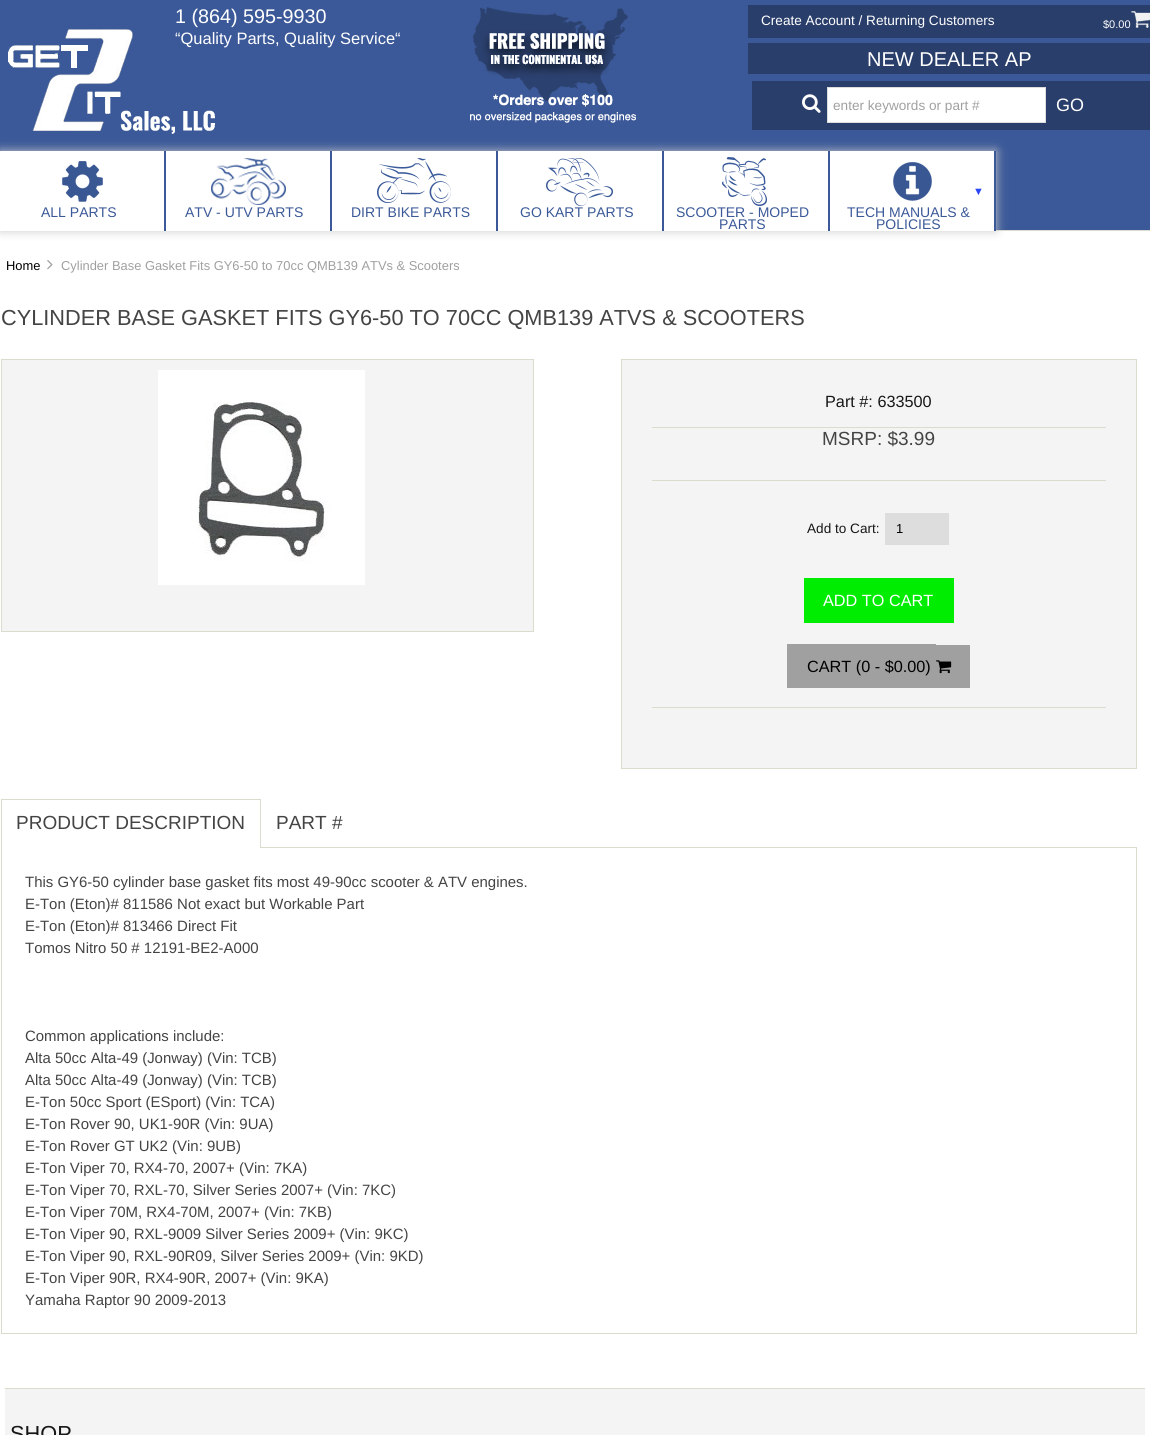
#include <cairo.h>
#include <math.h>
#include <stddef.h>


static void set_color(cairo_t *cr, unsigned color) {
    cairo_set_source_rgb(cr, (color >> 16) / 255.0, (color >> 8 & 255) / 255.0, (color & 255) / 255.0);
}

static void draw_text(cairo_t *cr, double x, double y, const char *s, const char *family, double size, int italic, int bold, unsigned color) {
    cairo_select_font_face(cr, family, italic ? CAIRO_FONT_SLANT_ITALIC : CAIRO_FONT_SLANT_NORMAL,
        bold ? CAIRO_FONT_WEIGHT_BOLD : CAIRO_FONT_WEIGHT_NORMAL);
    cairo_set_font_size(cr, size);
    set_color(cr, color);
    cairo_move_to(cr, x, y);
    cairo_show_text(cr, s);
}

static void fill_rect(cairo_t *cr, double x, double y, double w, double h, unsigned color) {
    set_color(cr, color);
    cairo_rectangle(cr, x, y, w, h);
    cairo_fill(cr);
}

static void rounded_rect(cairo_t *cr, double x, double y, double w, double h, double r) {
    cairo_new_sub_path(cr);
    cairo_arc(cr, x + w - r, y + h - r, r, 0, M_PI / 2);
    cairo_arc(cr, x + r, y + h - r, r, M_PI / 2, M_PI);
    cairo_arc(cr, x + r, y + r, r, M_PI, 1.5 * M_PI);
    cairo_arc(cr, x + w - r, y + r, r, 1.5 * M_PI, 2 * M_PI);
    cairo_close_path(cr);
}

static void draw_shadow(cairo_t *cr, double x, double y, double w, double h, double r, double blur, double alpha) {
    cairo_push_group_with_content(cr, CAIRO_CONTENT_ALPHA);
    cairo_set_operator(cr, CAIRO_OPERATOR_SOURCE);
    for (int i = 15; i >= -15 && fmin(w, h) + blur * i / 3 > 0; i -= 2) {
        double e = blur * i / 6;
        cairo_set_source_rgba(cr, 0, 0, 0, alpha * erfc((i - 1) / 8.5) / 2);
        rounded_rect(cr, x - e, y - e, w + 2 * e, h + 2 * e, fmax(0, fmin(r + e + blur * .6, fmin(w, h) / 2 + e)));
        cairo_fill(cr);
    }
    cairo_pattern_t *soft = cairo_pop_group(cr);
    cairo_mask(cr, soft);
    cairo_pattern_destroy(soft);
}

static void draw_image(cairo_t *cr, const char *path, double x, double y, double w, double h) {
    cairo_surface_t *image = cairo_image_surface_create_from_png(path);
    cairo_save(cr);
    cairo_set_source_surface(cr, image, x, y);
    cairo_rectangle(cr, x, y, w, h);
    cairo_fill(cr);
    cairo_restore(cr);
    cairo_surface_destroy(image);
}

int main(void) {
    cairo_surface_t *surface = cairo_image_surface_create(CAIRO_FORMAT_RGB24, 1150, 1435);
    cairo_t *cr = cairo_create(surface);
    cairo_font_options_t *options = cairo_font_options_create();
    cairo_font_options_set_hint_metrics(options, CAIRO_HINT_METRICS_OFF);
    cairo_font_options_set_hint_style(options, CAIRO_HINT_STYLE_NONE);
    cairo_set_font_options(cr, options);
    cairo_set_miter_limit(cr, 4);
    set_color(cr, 0xFFFFFF);
    cairo_paint(cr);
    fill_rect(cr, 0, 0, 1150, 230, 0x3B5998);
    fill_rect(cr, 996, 230, 154, 1, 0xDBDBCE);
    draw_image(cr, "assets/img1.png", 8, 29, 207, 105);
    draw_text(cr, 175, 23, "1 (864) 595-9930", "Liberation Sans", 19.75, 0, 0, 0xFFFFFF);
    draw_text(cr, 175, 44, "“Quality Parts, Quality Service“", "Liberation Sans", 16.5, 0, 0, 0xFFFFFF);
    draw_image(cr, "assets/img2.png", 470, 7, 166, 116);
    fill_rect(cr, 748, 5, 402, 33, 0x293E6A);
    draw_text(cr, 761, 25, "Create Account / Returning Customers", "Liberation Sans", 13.6, 0, 0, 0xFFFFFF);
    draw_text(cr, 1103, 28, "$0.00", "Liberation Sans", 11, 0, 0, 0xFFFFFF);
    draw_image(cr, "assets/img3.png", 1131, 11, 19, 17);
    fill_rect(cr, 748, 43, 402, 31, 0x293E6A);
    draw_text(cr, 867, 66, "NEW DEALER AP", "Liberation Sans", 20, 0, 0, 0xFFFFFF);
    fill_rect(cr, 752, 81, 398, 49, 0x293E6A);
    draw_image(cr, "assets/img4.png", 802, 94, 19, 19);
    set_color(cr, 0xFFFFFF);
    cairo_rectangle(cr, 827.5, 87.5, 218, 35);
    cairo_fill_preserve(cr);
    set_color(cr, 0xDDDDDD);
    cairo_set_line_width(cr, 1);
    cairo_stroke(cr);
    draw_text(cr, 833, 110, "enter keywords or part #", "Liberation Sans", 13.6, 0, 0, 0xA0A0A0);
    draw_text(cr, 1056, 111, "GO", "Liberation Sans", 18, 0, 0, 0xFFFFFF);
    set_color(cr, 0xCCCCCC);
    draw_shadow(cr, 0, 151, 996, 80, 0, 5, 1);
    fill_rect(cr, 0, 151, 994, 80, 0xFFFFFF);
    draw_image(cr, "assets/img5.png", 62, 161, 41, 41);
    fill_rect(cr, 164, 151, 2, 80, 0x3B5998);
    draw_text(cr, 41, 217, "ALL PARTS", "Liberation Sans", 14, 0, 0, 0x3B5998);
    draw_image(cr, "assets/img6.png", 211, 158, 75, 47);
    fill_rect(cr, 330, 151, 2, 80, 0x3B5998);
    draw_text(cr, 185, 217, "ATV - UTV PARTS", "Liberation Sans", 14, 0, 0, 0x3B5998);
    draw_image(cr, "assets/img7.png", 377, 158, 74, 45);
    fill_rect(cr, 496, 151, 2, 80, 0x3B5998);
    draw_text(cr, 351, 217, "DIRT BIKE PARTS", "Liberation Sans", 14, 0, 0, 0x3B5998);
    draw_image(cr, "assets/img8.png", 546, 158, 67, 48);
    fill_rect(cr, 662, 151, 2, 80, 0x3B5998);
    draw_text(cr, 520, 217, "GO KART PARTS", "Liberation Sans", 14, 0, 0, 0x3B5998);
    draw_image(cr, "assets/img9.png", 722, 157, 45, 49);
    fill_rect(cr, 828, 151, 2, 80, 0x3B5998);
    draw_text(cr, 676, 217, "SCOOTER - MOPED", "Liberation Sans", 14, 0, 0, 0x3B5998);
    draw_text(cr, 719, 229, "PARTS", "Liberation Sans", 14, 0, 0, 0x3B5998);
    draw_image(cr, "assets/img10.png", 893, 162, 39, 39);
    fill_rect(cr, 994, 151, 2, 80, 0x3B5998);
    draw_text(cr, 973, 195, "▼", "Liberation Sans", 11, 1, 0, 0x2A47F6);
    draw_text(cr, 847, 217, "TECH MANUALS &", "Liberation Sans", 14, 0, 0, 0x3B5998);
    draw_text(cr, 876, 229, "POLICIES", "Liberation Sans", 14, 0, 0, 0x3B5998);
    draw_text(cr, 6, 270, "Home", "Liberation Sans", 12.9, 0, 0, 0x000000);
    draw_image(cr, "assets/img11.png", 47, 260, 6, 10);
    draw_text(cr, 61, 270, "Cylinder Base Gasket Fits GY6-50 to 70cc QMB139 ATVs & Scooters", "Liberation Sans", 12.9, 0, 0, 0xA0A0A0);
    draw_text(cr, 1, 325, "CYLINDER BASE GASKET FITS GY6-50 TO 70CC QMB139 ATVS & SCOOTERS", "Liberation Sans", 21.75, 0, 0, 0x444444);
    set_color(cr, 0xF4F4F4);
    cairo_rectangle(cr, 1.5, 359.5, 532, 272);
    cairo_fill_preserve(cr);
    set_color(cr, 0xDBDBCE);
    cairo_stroke(cr);
    draw_image(cr, "assets/img12.png", 158, 370, 207, 215);
    set_color(cr, 0xF4F4F4);
    cairo_rectangle(cr, 621.5, 359.5, 515, 409);
    cairo_fill_preserve(cr);
    set_color(cr, 0xDBDBCE);
    cairo_stroke(cr);
    fill_rect(cr, 652, 427, 454, 1, 0xDBDBCE);
    draw_text(cr, 825, 407, "Part #: 633500", "Liberation Sans", 16.25, 0, 0, 0x171717);
    fill_rect(cr, 652, 480, 454, 1, 0xDBDBCE);
    draw_text(cr, 822, 445, "MSRP: $3.99", "Liberation Sans", 19, 0, 0, 0x444444);
    fill_rect(cr, 652, 707, 454, 1, 0xDBDBCE);
    draw_text(cr, 807, 533, "Add to Cart:", "Liberation Sans", 13.6, 0, 0, 0x171717);
    fill_rect(cr, 885, 513, 64, 32, 0xDDDDDE);
    draw_text(cr, 896, 533, "1", "Liberation Sans", 13, 0, 0, 0x000000);
    fill_rect(cr, 804, 578, 150, 45, 0x00EC01);
    draw_text(cr, 823, 606, "ADD TO CART", "Liberation Sans", 16.25, 0, 0, 0xFFFFFF);
    fill_rect(cr, 787, 644, 149, 44, 0xA0A0A0);
    fill_rect(cr, 936, 645, 34, 43, 0xA0A0A0);
    draw_text(cr, 807, 672, "CART (0 - $0.00)", "Liberation Sans", 16.25, 0, 0, 0x000000);
    draw_image(cr, "assets/img13.png", 936, 660, 16, 14);
    cairo_rectangle(cr, 1.5, 847.5, 1135, 486);
    set_color(cr, 0xDBDBCE);
    cairo_stroke(cr);
    fill_rect(cr, 2, 847, 258, 1, 0xFFFFFF);
    fill_rect(cr, 1, 799, 260, 1, 0xDBDBCE);
    fill_rect(cr, 260, 799, 1, 49, 0xDBDBCE);
    fill_rect(cr, 1, 799, 1, 49, 0xDBDBCE);
    draw_text(cr, 16, 829, "PRODUCT DESCRIPTION", "Liberation Sans", 19, 0, 0, 0x444444);
    draw_text(cr, 276, 829, "PART #", "Liberation Sans", 19, 0, 0, 0x444444);
    draw_text(cr, 25, 887, "This GY6-50 cylinder base gasket fits most 49-90cc scooter & ATV engines.", "Liberation Sans", 14.95, 0, 0, 0x444444);
    draw_text(cr, 25, 909, "E-Ton (Eton)# 811586 Not exact but Workable Part", "Liberation Sans", 14.95, 0, 0, 0x444444);
    draw_text(cr, 25, 931, "E-Ton (Eton)# 813466 Direct Fit", "Liberation Sans", 14.95, 0, 0, 0x444444);
    draw_text(cr, 25, 953, "Tomos Nitro 50 # 12191-BE2-A000", "Liberation Sans", 14.95, 0, 0, 0x444444);
    draw_text(cr, 25, 1041, "Common applications include:", "Liberation Sans", 14.95, 0, 0, 0x444444);
    draw_text(cr, 25, 1063, "Alta 50cc Alta-49 (Jonway) (Vin: TCB)", "Liberation Sans", 14.95, 0, 0, 0x444444);
    draw_text(cr, 25, 1085, "Alta 50cc Alta-49 (Jonway) (Vin: TCB)", "Liberation Sans", 14.95, 0, 0, 0x444444);
    draw_text(cr, 25, 1107, "E-Ton 50cc Sport (ESport) (Vin: TCA)", "Liberation Sans", 14.95, 0, 0, 0x444444);
    draw_text(cr, 25, 1129, "E-Ton Rover 90, UK1-90R (Vin: 9UA)", "Liberation Sans", 14.95, 0, 0, 0x444444);
    draw_text(cr, 25, 1151, "E-Ton Rover GT UK2 (Vin: 9UB)", "Liberation Sans", 14.95, 0, 0, 0x444444);
    draw_text(cr, 25, 1173, "E-Ton Viper 70, RX4-70, 2007+ (Vin: 7KA)", "Liberation Sans", 14.95, 0, 0, 0x444444);
    draw_text(cr, 25, 1195, "E-Ton Viper 70, RXL-70, Silver Series 2007+ (Vin: 7KC)", "Liberation Sans", 14.95, 0, 0, 0x444444);
    draw_text(cr, 25, 1217, "E-Ton Viper 70M, RX4-70M, 2007+ (Vin: 7KB)", "Liberation Sans", 14.95, 0, 0, 0x444444);
    draw_text(cr, 25, 1239, "E-Ton Viper 90, RXL-9009 Silver Series 2009+ (Vin: 9KC)", "Liberation Sans", 14.95, 0, 0, 0x444444);
    draw_text(cr, 25, 1261, "E-Ton Viper 90, RXL-90R09, Silver Series 2009+ (Vin: 9KD)", "Liberation Sans", 14.95, 0, 0, 0x444444);
    draw_text(cr, 25, 1283, "E-Ton Viper 90R, RX4-90R, 2007+ (Vin: 9KA)", "Liberation Sans", 14.95, 0, 0, 0x444444);
    draw_text(cr, 25, 1305, "Yamaha Raptor 90 2009-2013", "Liberation Sans", 14.95, 0, 0, 0x444444);
    fill_rect(cr, 5, 1388, 1140, 1, 0xDBDBCE);
    fill_rect(cr, 5, 1389, 1140, 46, 0xF4F4F4);
    draw_text(cr, 10, 1441, "SHOP", "Liberation Sans", 21.75, 0, 0, 0x171717);
    cairo_surface_write_to_png(surface, "output.png");
    cairo_font_options_destroy(options);
    cairo_destroy(cr);
    cairo_surface_destroy(surface);
    return 0;
}
